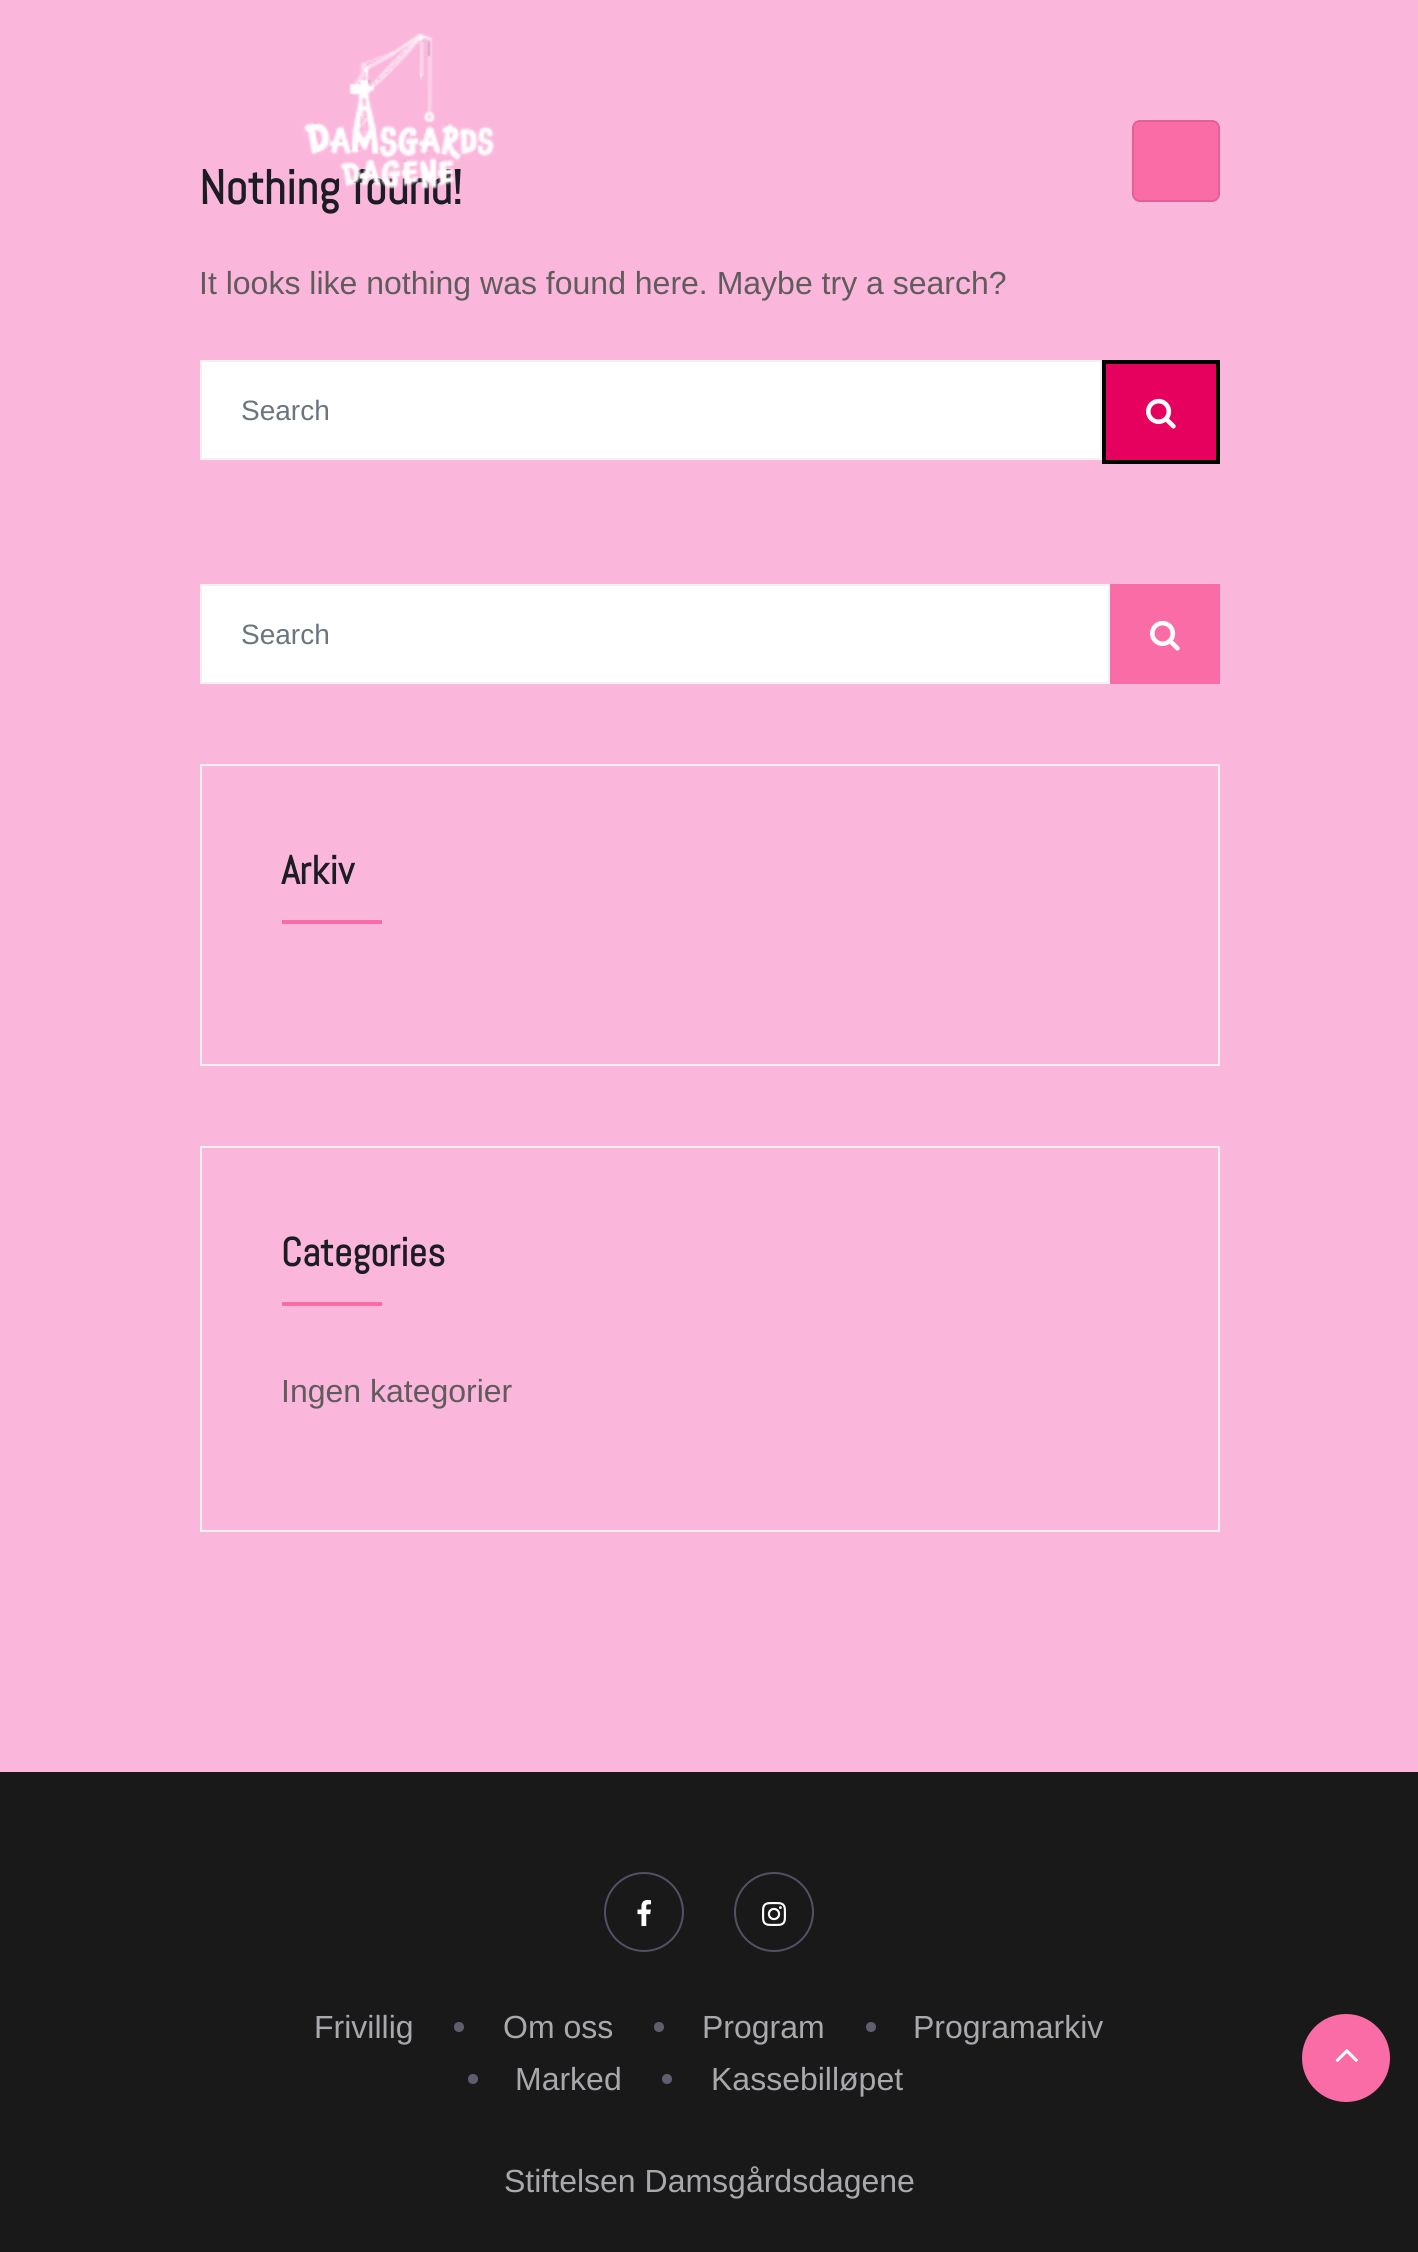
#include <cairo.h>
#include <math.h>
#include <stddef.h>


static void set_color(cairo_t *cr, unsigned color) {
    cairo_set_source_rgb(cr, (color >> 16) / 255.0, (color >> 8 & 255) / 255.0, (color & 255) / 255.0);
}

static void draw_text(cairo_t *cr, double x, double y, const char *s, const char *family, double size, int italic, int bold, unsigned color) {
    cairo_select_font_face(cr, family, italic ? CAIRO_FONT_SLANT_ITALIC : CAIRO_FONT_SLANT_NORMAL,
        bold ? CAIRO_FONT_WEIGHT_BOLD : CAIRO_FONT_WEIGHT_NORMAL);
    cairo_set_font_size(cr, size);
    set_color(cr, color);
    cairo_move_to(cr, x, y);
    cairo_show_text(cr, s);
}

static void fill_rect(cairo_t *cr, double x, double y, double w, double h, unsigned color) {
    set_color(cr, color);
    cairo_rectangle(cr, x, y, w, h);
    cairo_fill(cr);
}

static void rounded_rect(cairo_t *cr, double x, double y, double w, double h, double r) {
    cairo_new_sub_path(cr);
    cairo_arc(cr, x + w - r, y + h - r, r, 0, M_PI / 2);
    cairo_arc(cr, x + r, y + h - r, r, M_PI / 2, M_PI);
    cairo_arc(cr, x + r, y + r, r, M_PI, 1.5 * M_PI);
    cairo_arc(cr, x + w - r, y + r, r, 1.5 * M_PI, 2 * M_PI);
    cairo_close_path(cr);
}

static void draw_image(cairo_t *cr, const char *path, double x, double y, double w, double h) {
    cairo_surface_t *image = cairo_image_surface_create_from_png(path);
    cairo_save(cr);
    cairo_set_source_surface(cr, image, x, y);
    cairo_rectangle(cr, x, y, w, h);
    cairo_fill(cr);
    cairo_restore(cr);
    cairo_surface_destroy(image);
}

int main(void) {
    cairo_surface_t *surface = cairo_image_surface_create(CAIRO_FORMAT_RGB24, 1418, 2252);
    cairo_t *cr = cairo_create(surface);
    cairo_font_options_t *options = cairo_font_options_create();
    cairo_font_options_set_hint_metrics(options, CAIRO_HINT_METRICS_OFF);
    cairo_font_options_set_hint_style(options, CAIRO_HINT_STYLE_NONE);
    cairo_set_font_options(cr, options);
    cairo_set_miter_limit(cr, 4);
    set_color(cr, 0xFBB6DC);
    cairo_paint(cr);
    draw_text(cr, 199, 204, "Nothing found!", "Abel", 48, 0, 1, 0x1C1C24);
    draw_image(cr, "assets/img1.png", 303, 33, 192, 157);
    set_color(cr, 0xFA6CA6);
    rounded_rect(cr, 1132, 120, 88, 82, 8);
    cairo_fill(cr);
    rounded_rect(cr, 1133, 121, 86, 80, 7);
    cairo_set_source_rgba(cr, 0, 0, 0, 0.1);
    cairo_stroke(cr);
    draw_text(cr, 199, 294, "It looks like nothing was found here. Maybe try a search?", "Liberation Sans", 32, 0, 0, 0x605C5C);
    set_color(cr, 0xFFFFFF);
    cairo_rectangle(cr, 201, 361, 900, 98);
    cairo_fill_preserve(cr);
    set_color(cr, 0xF1F1F1);
    cairo_stroke(cr);
    draw_text(cr, 241, 420, "Search", "Liberation Sans", 28, 0, 0, 0x6C757D);
    set_color(cr, 0xE7015E);
    cairo_rectangle(cr, 1104, 362, 114, 100);
    cairo_fill_preserve(cr);
    set_color(cr, 0x000000);
    cairo_set_line_width(cr, 4);
    cairo_stroke(cr);
    draw_image(cr, "assets/img2.png", 1146, 398, 30, 31);
    set_color(cr, 0xFFFFFF);
    cairo_rectangle(cr, 201, 585, 908, 98);
    cairo_fill_preserve(cr);
    set_color(cr, 0xF1F1F1);
    cairo_set_line_width(cr, 2);
    cairo_stroke(cr);
    draw_text(cr, 241, 644, "Search", "Liberation Sans", 28, 0, 0, 0x6C757D);
    fill_rect(cr, 1110, 584, 110, 100, 0xFA6CA6);
    draw_image(cr, "assets/img3.png", 1150, 620, 30, 31);
    cairo_rectangle(cr, 201, 765, 1018, 300);
    set_color(cr, 0xF1F1F1);
    cairo_stroke(cr);
    draw_text(cr, 281, 884, "Arkiv", "Abel", 40, 0, 1, 0x1C1C24);
    fill_rect(cr, 282, 920, 100, 4, 0xFA6CA6);
    cairo_rectangle(cr, 201, 1147, 1018, 384);
    set_color(cr, 0xF1F1F1);
    cairo_stroke(cr);
    draw_text(cr, 281, 1266, "Categories", "Abel", 40, 0, 1, 0x1C1C24);
    fill_rect(cr, 282, 1302, 100, 4, 0xFA6CA6);
    draw_text(cr, 281, 1402, "Ingen kategorier", "Liberation Sans", 32, 0, 0, 0x605C5C);
    fill_rect(cr, 0, 1772, 1418, 480, 0x191919);
    cairo_new_path(cr);
    cairo_arc(cr, 644, 1912, 39, 0, 2 * M_PI);
    set_color(cr, 0x525164);
    cairo_stroke(cr);
    draw_image(cr, "assets/img4.png", 637, 1900, 14, 26);
    cairo_arc(cr, 774, 1912, 39, 0, 2 * M_PI);
    cairo_stroke(cr);
    draw_image(cr, "assets/img5.png", 762, 1902, 24, 24);
    draw_text(cr, 314, 2038, "Frivillig", "Liberation Sans", 32, 0, 0, 0xA8A8AD);
    set_color(cr, 0x5F5E6F);
    cairo_new_path(cr);
    cairo_arc(cr, 459, 2027, 5, 0, 2 * M_PI);
    cairo_fill(cr);
    draw_text(cr, 503, 2038, "Om oss", "Liberation Sans", 32, 0, 0, 0xA8A8AD);
    set_color(cr, 0x5F5E6F);
    cairo_new_path(cr);
    cairo_arc(cr, 659, 2027, 5, 0, 2 * M_PI);
    cairo_fill(cr);
    draw_text(cr, 702, 2038, "Program", "Liberation Sans", 32, 0, 0, 0xA8A8AD);
    set_color(cr, 0x5F5E6F);
    cairo_new_path(cr);
    cairo_arc(cr, 871, 2027, 5, 0, 2 * M_PI);
    cairo_fill(cr);
    draw_text(cr, 913, 2038, "Programarkiv", "Liberation Sans", 32, 0, 0, 0xA8A8AD);
    set_color(cr, 0x5F5E6F);
    cairo_new_path(cr);
    cairo_arc(cr, 473, 2079, 5, 0, 2 * M_PI);
    cairo_fill(cr);
    draw_text(cr, 515, 2090, "Marked", "Liberation Sans", 32, 0, 0, 0xA8A8AD);
    set_color(cr, 0x5F5E6F);
    cairo_new_path(cr);
    cairo_arc(cr, 667, 2079, 5, 0, 2 * M_PI);
    cairo_fill(cr);
    draw_text(cr, 711, 2090, "Kassebilløpet", "Liberation Sans", 32, 0, 0, 0xA8A8AD);
    set_color(cr, 0xFA6CA6);
    cairo_new_path(cr);
    cairo_arc(cr, 1346, 2058, 44, 0, 2 * M_PI);
    cairo_fill(cr);
    draw_image(cr, "assets/img6.png", 1335, 2049, 23, 13);
    draw_text(cr, 504, 2192, "Stiftelsen Damsgårdsdagene", "Liberation Sans", 32, 0, 0, 0xA8A8AD);
    cairo_surface_write_to_png(surface, "output.png");
    cairo_font_options_destroy(options);
    cairo_destroy(cr);
    cairo_surface_destroy(surface);
    return 0;
}
